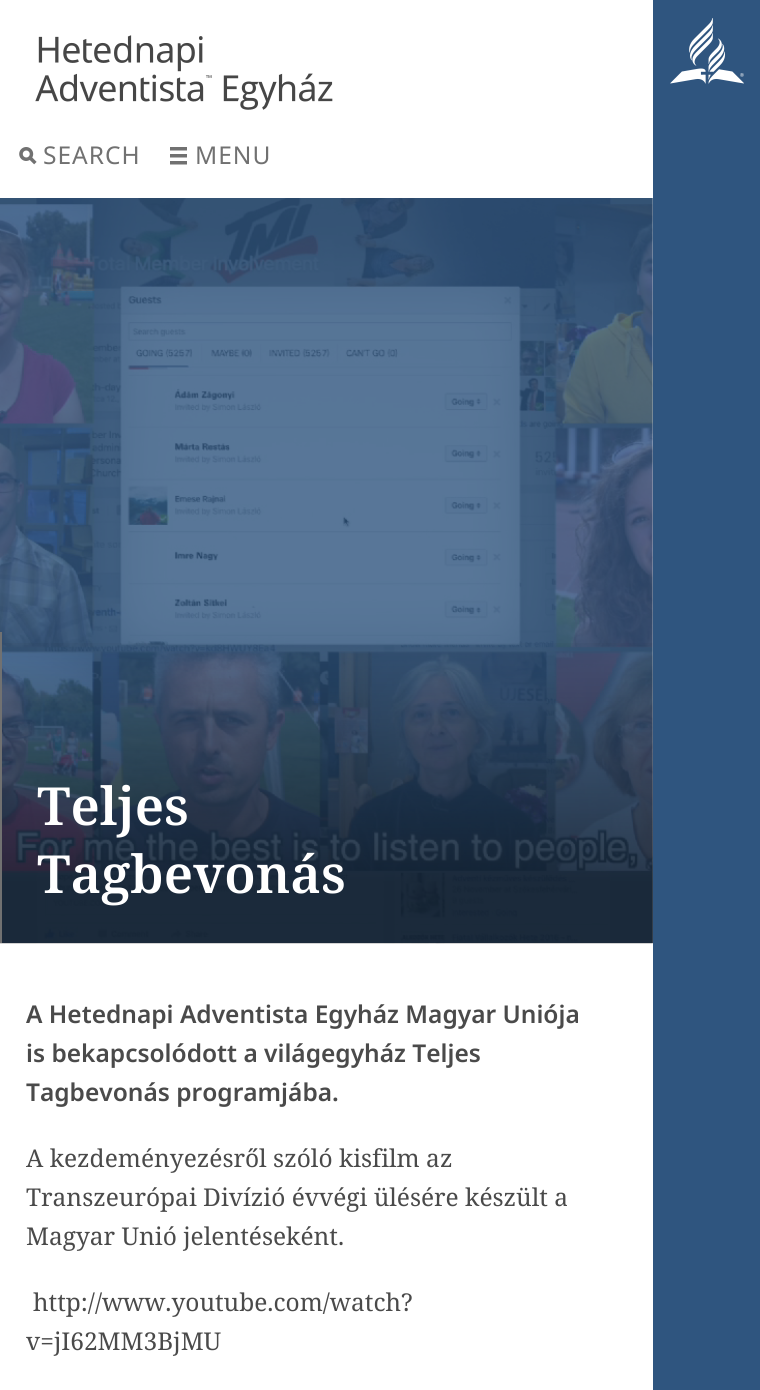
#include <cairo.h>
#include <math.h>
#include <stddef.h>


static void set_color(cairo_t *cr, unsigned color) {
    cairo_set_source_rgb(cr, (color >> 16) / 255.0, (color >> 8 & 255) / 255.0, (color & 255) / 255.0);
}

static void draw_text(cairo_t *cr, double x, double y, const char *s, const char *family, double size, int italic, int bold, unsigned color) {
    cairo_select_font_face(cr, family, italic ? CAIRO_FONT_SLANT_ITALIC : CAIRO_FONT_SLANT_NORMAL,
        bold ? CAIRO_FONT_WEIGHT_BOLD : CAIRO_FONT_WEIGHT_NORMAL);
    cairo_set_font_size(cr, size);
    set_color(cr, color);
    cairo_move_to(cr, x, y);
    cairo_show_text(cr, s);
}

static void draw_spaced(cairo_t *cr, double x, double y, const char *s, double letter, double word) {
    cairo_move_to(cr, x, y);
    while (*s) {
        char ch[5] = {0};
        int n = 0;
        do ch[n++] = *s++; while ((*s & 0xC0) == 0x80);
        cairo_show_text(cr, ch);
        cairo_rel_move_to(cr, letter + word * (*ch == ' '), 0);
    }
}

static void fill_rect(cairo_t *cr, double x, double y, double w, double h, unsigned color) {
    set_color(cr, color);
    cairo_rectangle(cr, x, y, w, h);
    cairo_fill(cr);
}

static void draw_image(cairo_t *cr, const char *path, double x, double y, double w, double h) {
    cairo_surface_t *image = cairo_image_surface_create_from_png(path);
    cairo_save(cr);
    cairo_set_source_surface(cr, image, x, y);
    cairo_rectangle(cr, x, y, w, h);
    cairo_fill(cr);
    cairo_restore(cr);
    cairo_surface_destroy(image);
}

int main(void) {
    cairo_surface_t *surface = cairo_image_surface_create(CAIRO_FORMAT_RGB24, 760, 1390);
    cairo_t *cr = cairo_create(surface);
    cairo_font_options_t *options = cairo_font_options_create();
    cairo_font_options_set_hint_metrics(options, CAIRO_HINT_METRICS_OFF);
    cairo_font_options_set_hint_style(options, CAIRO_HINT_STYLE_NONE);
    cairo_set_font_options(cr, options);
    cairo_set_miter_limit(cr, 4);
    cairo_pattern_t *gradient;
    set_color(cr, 0xFFFFFF);
    cairo_paint(cr);
    draw_image(cr, "assets/img1.png", 35, 35, 298, 75);
    draw_image(cr, "assets/img2.png", 19, 147, 18, 18);
    cairo_select_font_face(cr, "Noto Sans", CAIRO_FONT_SLANT_NORMAL, CAIRO_FONT_WEIGHT_NORMAL);
    cairo_set_font_size(cr, 24.5);
    set_color(cr, 0x717171);
    draw_spaced(cr, 43, 164, "SEARCH", 1, 0);
    draw_image(cr, "assets/img3.png", 170, 147, 17, 18);
    draw_spaced(cr, 195, 164, "MENU", 1, 0);
    draw_image(cr, "assets/img4.png", 0, 198, 653, 746);
    gradient = cairo_pattern_create_linear(326, 632, 326, 943);
    cairo_pattern_add_color_stop_rgba(gradient, 0, 0, 0, 0, 0);
    cairo_pattern_add_color_stop_rgba(gradient, 0.8, 0, 0, 0, 0.5);
    cairo_set_source(cr, gradient);
    cairo_pattern_destroy(gradient);
    cairo_rectangle(cr, 2, 643, 651, 300);
    cairo_fill(cr);
    fill_rect(cr, 0, 632, 2, 311, 0x717171);
    draw_text(cr, 37, 825, "Teljes", "Noto Serif SemiBold", 52.5, 0, 0, 0xFFFFFF);
    draw_text(cr, 37, 893, "Tagbevonás", "Noto Serif SemiBold", 52.5, 0, 0, 0xFFFFFF);
    draw_text(cr, 26, 1023, "A Hetednapi Adventista Egyház Magyar Uniója", "Noto Sans SemiBold", 24.5, 0, 0, 0x4A4A4A);
    draw_text(cr, 26, 1062, "is bekapcsolódott a világegyház Teljes", "Noto Sans SemiBold", 24.5, 0, 0, 0x4A4A4A);
    draw_text(cr, 26, 1101, "Tagbevonás programjába.", "Noto Sans SemiBold", 24.5, 0, 0, 0x4A4A4A);
    draw_text(cr, 26, 1167, "A kezdeményezésről szóló kisfilm az", "Noto Serif", 24.5, 0, 0, 0x4A4A4A);
    draw_text(cr, 26, 1206, "Transzeurópai Divízió évvégi ülésére készült a", "Noto Serif", 24.5, 0, 0, 0x4A4A4A);
    draw_text(cr, 26, 1245, "Magyar Unió jelentéseként.", "Noto Serif", 24.5, 0, 0, 0x4A4A4A);
    draw_text(cr, 33, 1311, "http://www.youtube.com/watch?", "Noto Serif", 24.5, 0, 0, 0x4A4A4A);
    draw_text(cr, 26, 1350, "v=jI62MM3BjMU", "Noto Serif", 24.5, 0, 0, 0x4A4A4A);
    fill_rect(cr, 653, 0, 107, 1390, 0x2F557F);
    draw_image(cr, "assets/img5.png", 670, 18, 74, 66);
    cairo_surface_write_to_png(surface, "output.png");
    cairo_font_options_destroy(options);
    cairo_destroy(cr);
    cairo_surface_destroy(surface);
    return 0;
}
